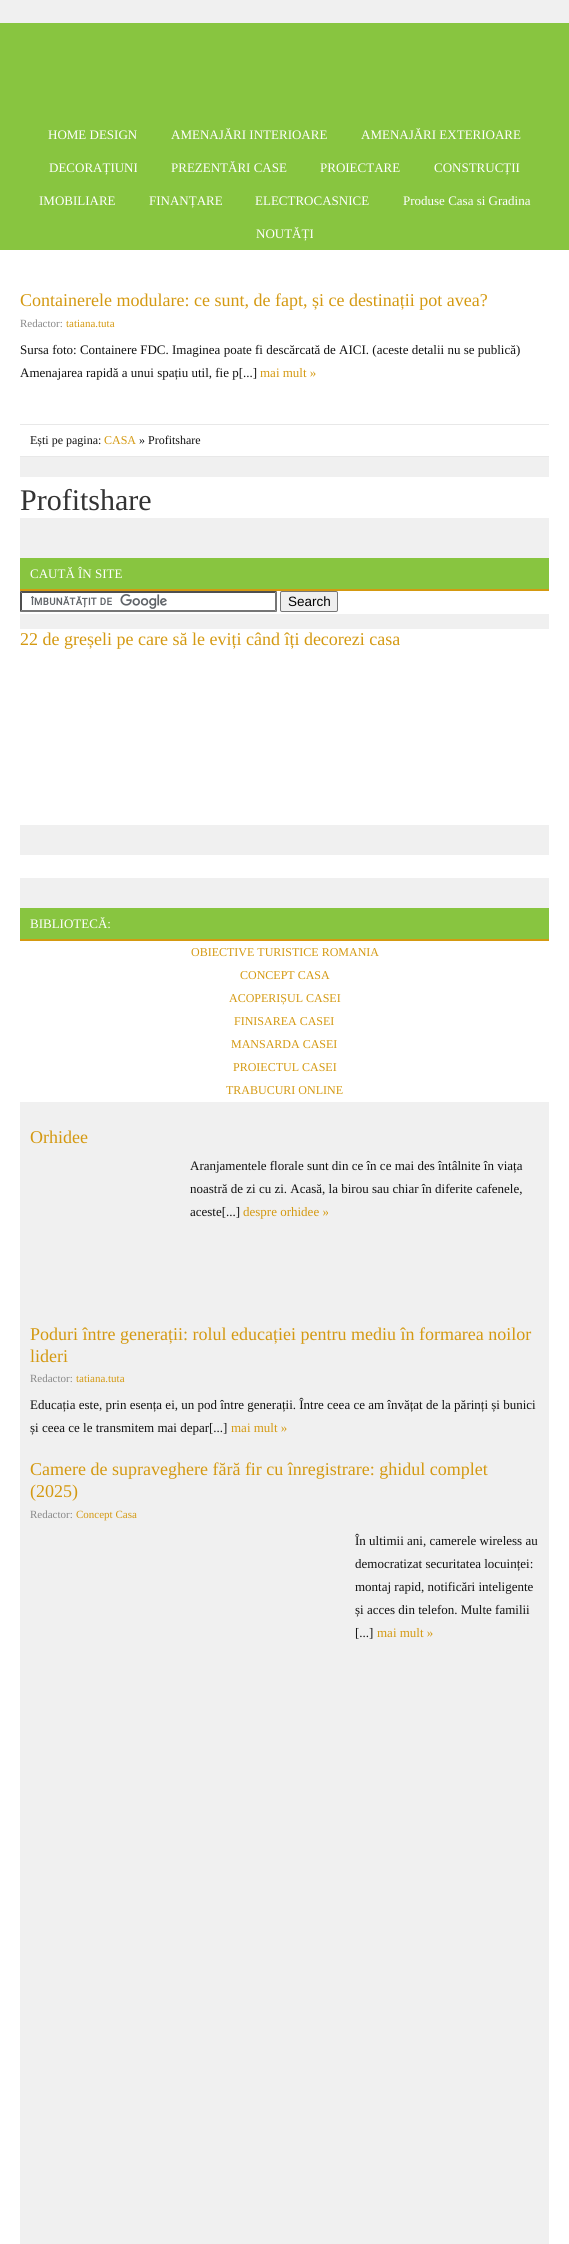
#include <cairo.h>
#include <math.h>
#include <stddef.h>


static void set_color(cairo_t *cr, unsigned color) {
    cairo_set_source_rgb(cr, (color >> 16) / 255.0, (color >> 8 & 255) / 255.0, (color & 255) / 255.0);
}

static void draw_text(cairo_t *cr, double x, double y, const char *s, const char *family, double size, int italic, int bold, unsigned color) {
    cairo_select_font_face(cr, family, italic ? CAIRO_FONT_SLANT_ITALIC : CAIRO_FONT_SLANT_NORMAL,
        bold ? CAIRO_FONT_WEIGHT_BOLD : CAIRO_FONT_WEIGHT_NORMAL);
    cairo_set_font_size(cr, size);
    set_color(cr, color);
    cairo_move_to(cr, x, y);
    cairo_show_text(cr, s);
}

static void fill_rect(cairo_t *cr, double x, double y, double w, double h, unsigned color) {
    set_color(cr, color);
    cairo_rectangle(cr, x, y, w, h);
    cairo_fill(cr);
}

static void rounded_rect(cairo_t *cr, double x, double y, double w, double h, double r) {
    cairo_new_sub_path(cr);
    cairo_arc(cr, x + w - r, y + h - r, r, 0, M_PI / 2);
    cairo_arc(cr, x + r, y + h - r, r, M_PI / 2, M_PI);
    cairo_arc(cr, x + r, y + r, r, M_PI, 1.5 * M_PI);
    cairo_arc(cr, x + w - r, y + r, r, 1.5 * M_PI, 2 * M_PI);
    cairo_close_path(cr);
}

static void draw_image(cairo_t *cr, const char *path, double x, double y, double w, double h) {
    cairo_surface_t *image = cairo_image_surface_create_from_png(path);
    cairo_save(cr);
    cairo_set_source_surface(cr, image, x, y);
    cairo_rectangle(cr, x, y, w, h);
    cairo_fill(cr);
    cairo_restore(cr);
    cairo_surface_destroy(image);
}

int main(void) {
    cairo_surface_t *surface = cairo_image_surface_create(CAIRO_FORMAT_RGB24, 569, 2244);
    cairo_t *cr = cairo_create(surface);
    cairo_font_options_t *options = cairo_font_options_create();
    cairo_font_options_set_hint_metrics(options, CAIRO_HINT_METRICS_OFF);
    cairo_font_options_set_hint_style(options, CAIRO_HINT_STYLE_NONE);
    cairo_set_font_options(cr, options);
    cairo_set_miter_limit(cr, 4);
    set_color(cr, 0xF0F0F0);
    cairo_paint(cr);
    fill_rect(cr, 0, 23, 569, 227, 0x88C540);
    draw_text(cr, 48, 139, "HOME DESIGN", "Liberation Serif", 13, 0, 0, 0xFFFFFF);
    draw_text(cr, 171, 139, "AMENAJĂRI INTERIOARE", "Liberation Serif", 13, 0, 0, 0xFFFFFF);
    draw_text(cr, 361, 139, "AMENAJĂRI EXTERIOARE", "Liberation Serif", 13, 0, 0, 0xFFFFFF);
    draw_text(cr, 49, 172, "DECORAȚIUNI", "Liberation Serif", 13, 0, 0, 0xFFFFFF);
    draw_text(cr, 171, 172, "PREZENTĂRI CASE", "Liberation Serif", 13, 0, 0, 0xFFFFFF);
    draw_text(cr, 320, 172, "PROIECTARE", "Liberation Serif", 13, 0, 0, 0xFFFFFF);
    draw_text(cr, 434, 172, "CONSTRUCȚII", "Liberation Serif", 13, 0, 0, 0xFFFFFF);
    draw_text(cr, 39, 205, "IMOBILIARE", "Liberation Serif", 13, 0, 0, 0xFFFFFF);
    draw_text(cr, 149, 205, "FINANȚARE", "Liberation Serif", 13, 0, 0, 0xFFFFFF);
    draw_text(cr, 255, 205, "ELECTROCASNICE", "Liberation Serif", 13, 0, 0, 0xFFFFFF);
    draw_text(cr, 403, 205, "Produse Casa si Gradina", "Liberation Serif", 13, 0, 0, 0xFFFFFF);
    draw_text(cr, 256, 238, "NOUTĂȚI", "Liberation Serif", 13, 0, 0, 0xFFFFFF);
    fill_rect(cr, 0, 250, 569, 1994, 0xFFFFFF);
    draw_text(cr, 20, 306, "Containerele modulare: ce sunt, de fapt, și ce destinații pot avea?", "Liberation Serif", 18, 0, 0, 0xD49911);
    draw_text(cr, 20, 327, "Redactor:", "Liberation Serif", 11, 0, 0, 0x888888);
    draw_text(cr, 66, 327, "tatiana.tuta", "Liberation Serif", 11, 0, 0, 0xD49911);
    draw_text(cr, 20, 354, "Sursa foto: Containere FDC. Imaginea poate fi descărcată de AICI. (aceste detalii nu se publică)", "Liberation Serif", 13, 0, 0, 0x111111);
    draw_text(cr, 20, 377, "Amenajarea rapidă a unui spațiu util, fie p[...]", "Liberation Serif", 13, 0, 0, 0x111111);
    draw_text(cr, 260, 377, "mai mult »", "Liberation Serif", 13, 0, 0, 0xD49911);
    fill_rect(cr, 20, 457, 529, 1787, 0xF0F0F0);
    fill_rect(cr, 20, 424, 529, 1, 0xE8E8E8);
    fill_rect(cr, 20, 456, 529, 1, 0xE8E8E8);
    draw_text(cr, 30, 444, "Ești pe pagina:", "Liberation Serif", 12, 0, 0, 0x111111);
    draw_text(cr, 104, 444, "CASA", "Liberation Serif", 12, 0, 0, 0xD49911);
    draw_text(cr, 139, 444, "» Profitshare", "Liberation Serif", 12, 0, 0, 0x111111);
    fill_rect(cr, 20, 477, 529, 41, 0xFFFFFF);
    draw_text(cr, 20, 510, "Profitshare", "Liberation Serif", 30, 0, 0, 0x333333);
    fill_rect(cr, 20, 591, 529, 23, 0xFFFFFF);
    fill_rect(cr, 20, 558, 529, 31, 0x88C540);
    fill_rect(cr, 20, 589, 529, 2, 0xD49911);
    draw_text(cr, 30, 578, "CAUTĂ ÎN SITE", "Liberation Serif", 13, 0, 0, 0xFFFFFF);
    draw_image(cr, "assets/img1.png", 31, 594, 136, 15);
    set_color(cr, 0x4F4F4F);
    cairo_new_path(cr);
    cairo_move_to(cr, 20, 591);
    cairo_line_to(cr, 277, 591);
    cairo_line_to(cr, 275, 593);
    cairo_line_to(cr, 22, 593);
    cairo_close_path(cr);
    cairo_fill(cr);
    set_color(cr, 0x767676);
    cairo_new_path(cr);
    cairo_move_to(cr, 277, 591);
    cairo_line_to(cr, 277, 612);
    cairo_line_to(cr, 275, 610);
    cairo_line_to(cr, 275, 593);
    cairo_close_path(cr);
    cairo_fill(cr);
    cairo_new_path(cr);
    cairo_move_to(cr, 277, 612);
    cairo_line_to(cr, 20, 612);
    cairo_line_to(cr, 22, 610);
    cairo_line_to(cr, 275, 610);
    cairo_close_path(cr);
    cairo_fill(cr);
    set_color(cr, 0x4F4F4F);
    cairo_new_path(cr);
    cairo_move_to(cr, 20, 612);
    cairo_line_to(cr, 20, 591);
    cairo_line_to(cr, 22, 593);
    cairo_line_to(cr, 22, 610);
    cairo_close_path(cr);
    cairo_fill(cr);
    set_color(cr, 0xEFEFEF);
    rounded_rect(cr, 280.5, 591.5, 57, 20, 1.5);
    cairo_fill_preserve(cr);
    set_color(cr, 0x767676);
    cairo_set_line_width(cr, 1);
    cairo_stroke(cr);
    draw_text(cr, 288, 606, "Search", "Liberation Sans", 13.5, 0, 0, 0x000000);
    fill_rect(cr, 20, 629, 529, 196, 0xFFFFFF);
    draw_text(cr, 20, 645, "22 de greșeli pe care să le eviți când îți decorezi casa", "Liberation Serif", 18, 0, 0, 0xD49911);
    fill_rect(cr, 20, 855, 529, 23, 0xFFFFFF);
    fill_rect(cr, 20, 941, 529, 161, 0xFFFFFF);
    fill_rect(cr, 20, 908, 529, 31, 0x88C540);
    fill_rect(cr, 20, 939, 529, 2, 0xD49911);
    draw_text(cr, 30, 928, "BIBLIOTECĂ:", "Liberation Serif", 13, 0, 0, 0xFFFFFF);
    draw_text(cr, 191, 956, "OBIECTIVE TURISTICE ROMANIA", "Liberation Serif", 12, 0, 0, 0xD49911);
    draw_text(cr, 240, 979, "CONCEPT CASA", "Liberation Serif", 12, 0, 0, 0xD49911);
    draw_text(cr, 229, 1002, "ACOPERIȘUL CASEI", "Liberation Serif", 12, 0, 0, 0xD49911);
    draw_text(cr, 234, 1025, "FINISAREA CASEI", "Liberation Serif", 12, 0, 0, 0xD49911);
    draw_text(cr, 231, 1048, "MANSARDA CASEI", "Liberation Serif", 12, 0, 0, 0xD49911);
    draw_text(cr, 233, 1071, "PROIECTUL CASEI", "Liberation Serif", 12, 0, 0, 0xD49911);
    draw_text(cr, 226, 1094, "TRABUCURI ONLINE", "Liberation Serif", 12, 0, 0, 0xD49911);
    draw_text(cr, 30, 1143, "Orhidee", "Liberation Serif", 18, 0, 0, 0xD49911);
    draw_text(cr, 190, 1170, "Aranjamentele florale sunt din ce în ce mai des întâlnite în viața", "Liberation Serif", 13, 0, 0, 0x111111);
    draw_text(cr, 190, 1193, "noastră de zi cu zi. Acasă, la birou sau chiar în diferite cafenele,", "Liberation Serif", 13, 0, 0, 0x111111);
    draw_text(cr, 190, 1216, "aceste[...]", "Liberation Serif", 13, 0, 0, 0x111111);
    draw_text(cr, 243, 1216, "despre orhidee »", "Liberation Serif", 13, 0, 0, 0xD49911);
    draw_text(cr, 30, 1340, "Poduri între generații: rolul educației pentru mediu în formarea noilor", "Liberation Serif", 18, 0, 0, 0xD49911);
    draw_text(cr, 30, 1362, "lideri", "Liberation Serif", 18, 0, 0, 0xD49911);
    draw_text(cr, 30, 1382, "Redactor:", "Liberation Serif", 11, 0, 0, 0x888888);
    draw_text(cr, 76, 1382, "tatiana.tuta", "Liberation Serif", 11, 0, 0, 0xD49911);
    draw_text(cr, 30, 1409, "Educația este, prin esența ei, un pod între generații. Între ceea ce am învățat de la părinți și bunici", "Liberation Serif", 13, 0, 0, 0x111111);
    draw_text(cr, 30, 1432, "și ceea ce le transmitem mai depar[...]", "Liberation Serif", 13, 0, 0, 0x111111);
    draw_text(cr, 231, 1432, "mai mult »", "Liberation Serif", 13, 0, 0, 0xD49911);
    draw_text(cr, 30, 1475, "Camere de supraveghere fără fir cu înregistrare: ghidul complet", "Liberation Serif", 18, 0, 0, 0xD49911);
    draw_text(cr, 30, 1497, "(2025)", "Liberation Serif", 18, 0, 0, 0xD49911);
    draw_text(cr, 30, 1518, "Redactor:", "Liberation Serif", 11, 0, 0, 0x888888);
    draw_text(cr, 76, 1518, "Concept Casa", "Liberation Serif", 11, 0, 0, 0xD49911);
    draw_text(cr, 355, 1545, "În ultimii ani, camerele wireless au", "Liberation Serif", 13, 0, 0, 0x111111);
    draw_text(cr, 355, 1568, "democratizat securitatea locuinței:", "Liberation Serif", 13, 0, 0, 0x111111);
    draw_text(cr, 355, 1591, "montaj rapid, notificări inteligente", "Liberation Serif", 13, 0, 0, 0x111111);
    draw_text(cr, 355, 1614, "și acces din telefon. Multe familii", "Liberation Serif", 13, 0, 0, 0x111111);
    draw_text(cr, 355, 1637, "[...]", "Liberation Serif", 13, 0, 0, 0x111111);
    draw_text(cr, 377, 1637, "mai mult »", "Liberation Serif", 13, 0, 0, 0xD49911);
    cairo_surface_write_to_png(surface, "output.png");
    cairo_font_options_destroy(options);
    cairo_destroy(cr);
    cairo_surface_destroy(surface);
    return 0;
}
